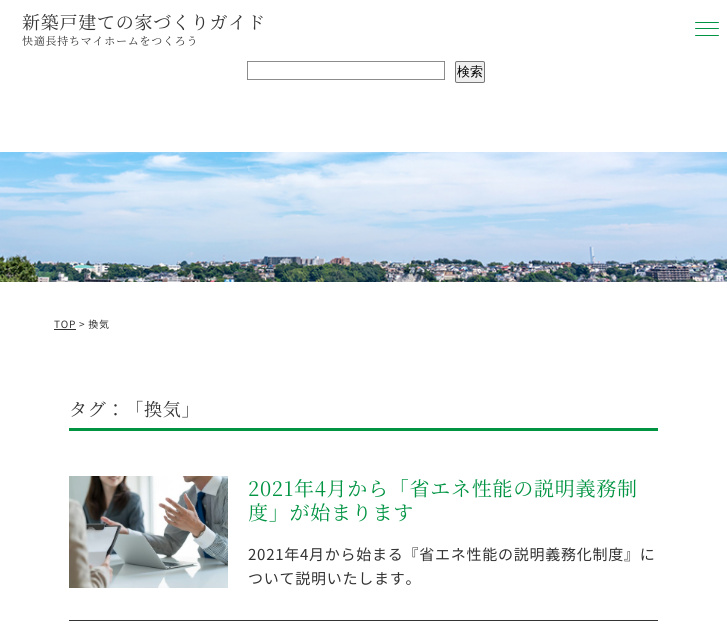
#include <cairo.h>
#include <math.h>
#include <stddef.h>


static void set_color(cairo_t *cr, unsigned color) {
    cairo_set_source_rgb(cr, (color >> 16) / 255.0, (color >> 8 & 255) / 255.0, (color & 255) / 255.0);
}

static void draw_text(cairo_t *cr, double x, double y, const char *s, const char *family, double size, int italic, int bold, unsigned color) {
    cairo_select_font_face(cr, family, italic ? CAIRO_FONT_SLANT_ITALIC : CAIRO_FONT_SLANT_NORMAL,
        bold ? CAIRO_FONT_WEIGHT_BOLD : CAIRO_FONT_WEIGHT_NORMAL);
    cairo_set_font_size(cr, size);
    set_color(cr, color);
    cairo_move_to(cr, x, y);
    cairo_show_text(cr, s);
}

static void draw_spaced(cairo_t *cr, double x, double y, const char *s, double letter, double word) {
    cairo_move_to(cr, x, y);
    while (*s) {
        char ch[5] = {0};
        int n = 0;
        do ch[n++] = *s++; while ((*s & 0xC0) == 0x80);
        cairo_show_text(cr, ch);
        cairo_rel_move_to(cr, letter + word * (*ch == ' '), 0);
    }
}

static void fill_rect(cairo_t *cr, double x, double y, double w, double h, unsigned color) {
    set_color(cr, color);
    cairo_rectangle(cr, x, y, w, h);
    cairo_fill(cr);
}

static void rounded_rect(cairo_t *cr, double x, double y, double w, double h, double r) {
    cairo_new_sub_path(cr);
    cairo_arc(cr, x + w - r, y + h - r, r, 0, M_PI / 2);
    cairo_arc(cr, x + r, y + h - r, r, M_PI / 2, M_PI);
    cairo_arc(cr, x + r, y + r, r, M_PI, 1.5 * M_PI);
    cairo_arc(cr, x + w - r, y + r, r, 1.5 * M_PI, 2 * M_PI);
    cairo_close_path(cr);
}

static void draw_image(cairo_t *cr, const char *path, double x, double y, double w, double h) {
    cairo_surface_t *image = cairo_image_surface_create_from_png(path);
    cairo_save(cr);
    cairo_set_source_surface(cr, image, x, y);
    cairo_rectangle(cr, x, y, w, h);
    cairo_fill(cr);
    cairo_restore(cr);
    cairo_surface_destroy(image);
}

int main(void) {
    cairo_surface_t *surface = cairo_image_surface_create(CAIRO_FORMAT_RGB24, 727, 633);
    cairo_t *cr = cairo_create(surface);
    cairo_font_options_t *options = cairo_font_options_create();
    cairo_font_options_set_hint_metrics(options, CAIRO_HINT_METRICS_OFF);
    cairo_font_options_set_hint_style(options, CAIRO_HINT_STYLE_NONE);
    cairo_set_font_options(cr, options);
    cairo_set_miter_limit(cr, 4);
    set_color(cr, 0xFFFFFF);
    cairo_paint(cr);
    cairo_select_font_face(cr, "Noto Serif JP ExtraLight", CAIRO_FONT_SLANT_NORMAL, CAIRO_FONT_WEIGHT_NORMAL);
    cairo_set_font_size(cr, 18);
    set_color(cr, 0x333333);
    draw_spaced(cr, 22, 29, "新築戸建ての家づくりガイド", 0.75, 0);
    cairo_set_font_size(cr, 11);
    draw_spaced(cr, 22, 45, "快適長持ちマイホームをつくろう", 0.75, 0);
    set_color(cr, 0x009342);
    rounded_rect(cr, 695, 22, 24, 1, 0.5);
    cairo_fill(cr);
    rounded_rect(cr, 695, 28, 24, 1, 0.5);
    cairo_fill(cr);
    rounded_rect(cr, 695, 35, 24, 1, 0.5);
    cairo_fill(cr);
    cairo_rectangle(cr, 247.45, 61.45, 197.1, 18.1);
    set_color(cr, 0x808080);
    cairo_set_line_width(cr, 0.9);
    cairo_stroke(cr);
    set_color(cr, 0xEFEFEF);
    rounded_rect(cr, 455.5, 61.5, 29, 21, 1.5);
    cairo_fill_preserve(cr);
    set_color(cr, 0x767676);
    cairo_set_line_width(cr, 1);
    cairo_stroke(cr);
    draw_text(cr, 457, 76, "検索", "WenQuanYi Zen Hei Medium", 13, 0, 0, 0x000000);
    draw_image(cr, "assets/img1.png", 0, 152, 727, 130);
    cairo_select_font_face(cr, "Noto Sans JP Thin", CAIRO_FONT_SLANT_NORMAL, CAIRO_FONT_WEIGHT_NORMAL);
    cairo_set_font_size(cr, 10);
    set_color(cr, 0x333333);
    draw_spaced(cr, 54, 328, "TOP", 0.75, 0);
    fill_rect(cr, 54, 329, 22, 1, 0x333333);
    draw_spaced(cr, 79, 328, "> 換気", 0.75, 0);
    fill_rect(cr, 69, 428, 589, 3, 0x009342);
    cairo_select_font_face(cr, "Noto Serif JP ExtraLight", CAIRO_FONT_SLANT_NORMAL, CAIRO_FONT_WEIGHT_NORMAL);
    cairo_set_font_size(cr, 18);
    set_color(cr, 0x333333);
    draw_spaced(cr, 69, 416, "タグ：「換気」", 0.75, 0);
    fill_rect(cr, 69, 620, 589, 1, 0x333333);
    draw_image(cr, "assets/img2.png", 69, 476, 159, 112);
    cairo_set_font_size(cr, 20);
    set_color(cr, 0x009342);
    draw_spaced(cr, 248, 496, "2021年4月から「省エネ性能の説明義務制", 0.75, 0);
    draw_spaced(cr, 248, 520, "度」が始まります", 0.75, 0);
    cairo_select_font_face(cr, "Noto Sans JP Thin", CAIRO_FONT_SLANT_NORMAL, CAIRO_FONT_WEIGHT_NORMAL);
    cairo_set_font_size(cr, 15);
    set_color(cr, 0x333333);
    draw_spaced(cr, 248, 560, "2021年4月から始まる『省エネ性能の説明義務化制度』に", 0.75, 0);
    draw_spaced(cr, 248, 584, "ついて説明いたします。", 0.75, 0);
    cairo_surface_write_to_png(surface, "output.png");
    cairo_font_options_destroy(options);
    cairo_destroy(cr);
    cairo_surface_destroy(surface);
    return 0;
}
